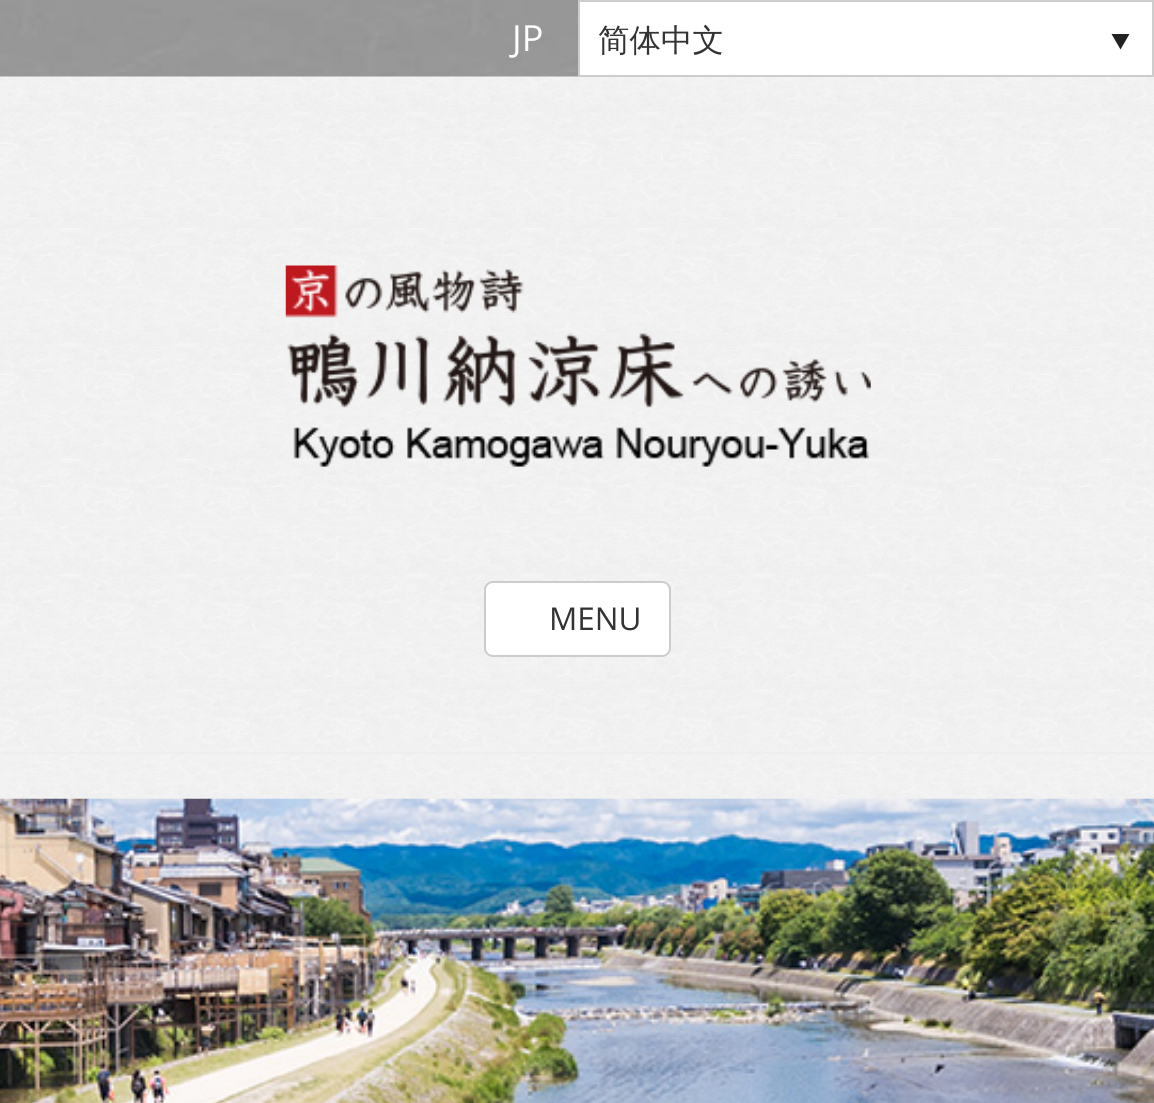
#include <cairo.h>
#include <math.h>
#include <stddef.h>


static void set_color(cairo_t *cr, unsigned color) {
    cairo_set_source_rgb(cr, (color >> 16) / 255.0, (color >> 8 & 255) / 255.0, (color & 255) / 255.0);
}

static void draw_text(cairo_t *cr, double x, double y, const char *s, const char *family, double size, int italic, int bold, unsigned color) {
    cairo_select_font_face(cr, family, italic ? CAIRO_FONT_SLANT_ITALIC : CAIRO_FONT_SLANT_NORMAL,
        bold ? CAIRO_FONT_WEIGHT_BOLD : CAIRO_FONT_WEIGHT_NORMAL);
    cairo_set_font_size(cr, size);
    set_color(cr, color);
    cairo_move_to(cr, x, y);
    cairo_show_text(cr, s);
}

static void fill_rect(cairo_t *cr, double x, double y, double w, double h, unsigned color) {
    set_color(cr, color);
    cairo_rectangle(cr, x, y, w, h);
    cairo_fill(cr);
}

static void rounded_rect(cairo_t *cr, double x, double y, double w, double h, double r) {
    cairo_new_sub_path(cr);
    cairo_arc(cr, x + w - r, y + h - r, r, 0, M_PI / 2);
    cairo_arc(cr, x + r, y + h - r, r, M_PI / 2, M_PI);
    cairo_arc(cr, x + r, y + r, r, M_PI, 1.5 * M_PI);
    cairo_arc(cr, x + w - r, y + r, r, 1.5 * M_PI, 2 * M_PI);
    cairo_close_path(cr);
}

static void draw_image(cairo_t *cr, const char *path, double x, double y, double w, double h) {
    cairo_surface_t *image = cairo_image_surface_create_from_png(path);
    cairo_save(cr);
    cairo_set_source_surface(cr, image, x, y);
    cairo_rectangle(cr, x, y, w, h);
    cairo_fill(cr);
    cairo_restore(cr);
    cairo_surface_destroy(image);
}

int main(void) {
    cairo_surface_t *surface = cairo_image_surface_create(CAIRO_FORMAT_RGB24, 1154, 1103);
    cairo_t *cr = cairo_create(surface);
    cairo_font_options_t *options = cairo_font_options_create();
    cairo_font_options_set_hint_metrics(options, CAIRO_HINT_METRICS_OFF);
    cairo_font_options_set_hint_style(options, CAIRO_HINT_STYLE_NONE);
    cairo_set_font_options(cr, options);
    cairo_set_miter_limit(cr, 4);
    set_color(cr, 0xFFFFFF);
    cairo_paint(cr);
    draw_image(cr, "assets/img1.png", 0, 76, 1154, 723);
    draw_image(cr, "assets/img2.png", 0, 0, 578, 77);
    draw_text(cr, 512, 51, "JP", "Open Sans", 36, 0, 0, 0xFFFFFF);
    cairo_rectangle(cr, 579, 1, 574, 75);
    set_color(cr, 0xCDCDCD);
    cairo_stroke(cr);
    draw_text(cr, 598, 51, "简体中文", "WenQuanYi Zen Hei Medium", 31.5, 0, 0, 0x333333);
    set_color(cr, 0x222222);
    cairo_new_path(cr);
    cairo_move_to(cr, 1111.5, 34);
    cairo_line_to(cr, 1129.5, 34);
    cairo_line_to(cr, 1120.5, 49.5);
    cairo_close_path(cr);
    cairo_fill(cr);
    fill_rect(cr, 0, 752, 1154, 2, 0xEEEEEE);
    draw_image(cr, "assets/img3.png", 285, 265, 586, 202);
    set_color(cr, 0xFFFFFF);
    rounded_rect(cr, 485, 582, 185, 74, 8);
    cairo_fill_preserve(cr);
    set_color(cr, 0xCCCCCC);
    cairo_stroke(cr);
    draw_text(cr, 549, 630, "MENU", "Open Sans", 31.5, 0, 0, 0x333333);
    draw_image(cr, "assets/img4.png", 0, 798, 1154, 305);
    cairo_surface_write_to_png(surface, "output.png");
    cairo_font_options_destroy(options);
    cairo_destroy(cr);
    cairo_surface_destroy(surface);
    return 0;
}
